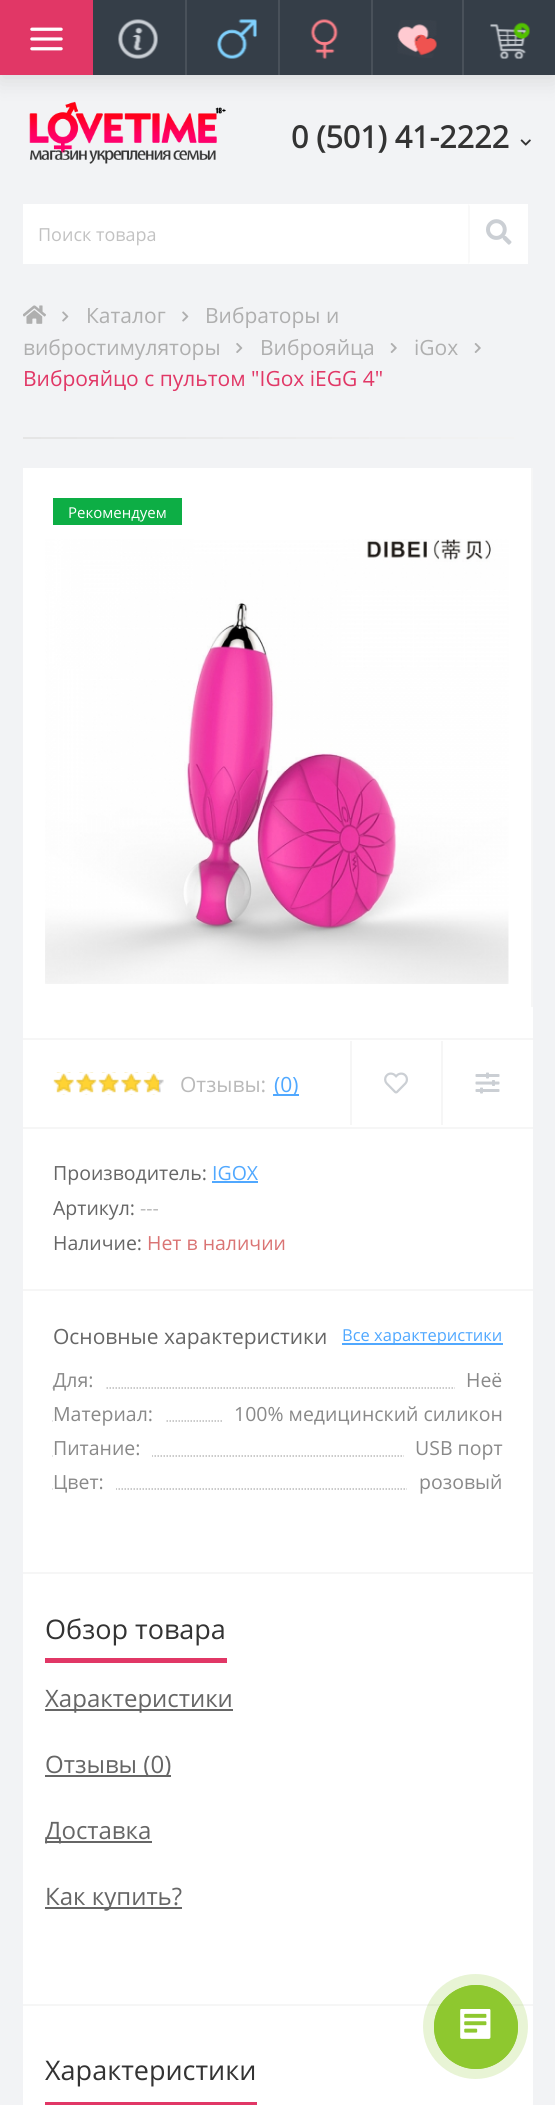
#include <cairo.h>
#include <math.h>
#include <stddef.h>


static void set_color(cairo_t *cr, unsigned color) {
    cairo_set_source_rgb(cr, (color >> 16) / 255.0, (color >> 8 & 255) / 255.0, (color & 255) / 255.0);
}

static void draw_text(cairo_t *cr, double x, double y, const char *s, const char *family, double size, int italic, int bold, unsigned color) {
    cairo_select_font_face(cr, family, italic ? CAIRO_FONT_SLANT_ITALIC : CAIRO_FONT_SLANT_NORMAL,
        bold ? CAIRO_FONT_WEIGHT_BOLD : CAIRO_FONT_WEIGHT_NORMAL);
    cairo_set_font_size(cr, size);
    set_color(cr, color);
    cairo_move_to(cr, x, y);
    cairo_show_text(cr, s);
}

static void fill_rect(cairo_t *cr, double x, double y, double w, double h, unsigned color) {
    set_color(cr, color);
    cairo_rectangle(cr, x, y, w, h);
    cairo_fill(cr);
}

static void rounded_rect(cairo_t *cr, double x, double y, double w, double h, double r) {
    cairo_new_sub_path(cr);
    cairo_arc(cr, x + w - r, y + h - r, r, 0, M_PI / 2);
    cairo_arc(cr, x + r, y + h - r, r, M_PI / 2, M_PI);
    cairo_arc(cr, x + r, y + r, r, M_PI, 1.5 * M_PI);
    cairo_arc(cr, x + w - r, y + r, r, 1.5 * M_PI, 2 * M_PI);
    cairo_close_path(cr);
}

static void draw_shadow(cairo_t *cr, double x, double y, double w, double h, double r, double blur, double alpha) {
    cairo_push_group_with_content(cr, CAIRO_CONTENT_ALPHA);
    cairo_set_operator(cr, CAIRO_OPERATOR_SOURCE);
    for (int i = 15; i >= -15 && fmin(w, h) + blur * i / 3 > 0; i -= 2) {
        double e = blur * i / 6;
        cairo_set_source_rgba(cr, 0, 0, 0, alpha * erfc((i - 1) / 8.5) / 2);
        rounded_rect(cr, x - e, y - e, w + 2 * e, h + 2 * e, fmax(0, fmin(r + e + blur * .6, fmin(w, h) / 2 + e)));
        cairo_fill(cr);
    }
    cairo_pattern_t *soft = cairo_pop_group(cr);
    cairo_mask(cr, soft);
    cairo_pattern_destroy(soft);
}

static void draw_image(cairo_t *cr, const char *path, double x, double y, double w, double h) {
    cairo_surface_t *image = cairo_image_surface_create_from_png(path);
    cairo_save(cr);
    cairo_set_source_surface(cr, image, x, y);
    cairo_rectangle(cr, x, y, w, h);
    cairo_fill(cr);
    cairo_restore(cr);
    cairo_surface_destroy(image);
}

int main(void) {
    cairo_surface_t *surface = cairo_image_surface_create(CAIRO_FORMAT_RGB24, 555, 2105);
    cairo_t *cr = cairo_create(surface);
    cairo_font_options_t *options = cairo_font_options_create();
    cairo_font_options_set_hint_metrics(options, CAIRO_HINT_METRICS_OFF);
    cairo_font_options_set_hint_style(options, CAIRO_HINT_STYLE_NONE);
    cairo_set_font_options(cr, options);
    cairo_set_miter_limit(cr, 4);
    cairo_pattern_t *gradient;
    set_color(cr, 0xF2F3F5);
    cairo_paint(cr);
    draw_image(cr, "assets/img7.png", 29, 101, 197, 63);
    set_color(cr, 0x000000);
    draw_shadow(cr, 0, 6, 555, 75, 0, 11, 0.1);
    fill_rect(cr, 93, 0, 462, 75, 0x353E48);
    fill_rect(cr, 0, 0, 93, 75, 0xE13766);
    draw_image(cr, "assets/img1.png", 30, 27, 33, 24);
    draw_image(cr, "assets/img2.png", 118, 19, 40, 40);
    fill_rect(cr, 185, 0, 2, 75, 0x49515A);
    draw_image(cr, "assets/img3.png", 217, 19, 40, 40);
    fill_rect(cr, 278, 0, 2, 75, 0x49515A);
    draw_image(cr, "assets/img4.png", 310, 19, 29, 40);
    fill_rect(cr, 371, 0, 2, 75, 0x49515A);
    draw_image(cr, "assets/img5.png", 397, 20, 40, 38);
    fill_rect(cr, 462, 0, 2, 75, 0x49515A);
    draw_image(cr, "assets/img6.png", 490, 22, 40, 37);
    draw_text(cr, 291, 148, "0 (501) 41-2222", "Open Sans", 30.5, 0, 1, 0x333333);
    draw_image(cr, "assets/img8.png", 520, 139, 11, 7);
    fill_rect(cr, 23, 204, 505, 60, 0xFFFFFF);
    draw_text(cr, 38, 241, "Поиск товара", "Open Sans", 18, 0, 0, 0xC2C2C2);
    set_color(cr, 0xF9F9F9);
    cairo_new_path(cr);
    cairo_move_to(cr, 468, 264);
    cairo_line_to(cr, 468, 204);
    cairo_line_to(cr, 470, 206);
    cairo_line_to(cr, 470, 262);
    cairo_close_path(cr);
    cairo_fill(cr);
    draw_image(cr, "assets/img9.png", 486, 219, 26, 26);
    draw_image(cr, "assets/img10.png", 23, 305, 23, 19);
    draw_image(cr, "assets/img11.png", 62, 311, 7, 11);
    draw_text(cr, 86, 323, "Каталог", "Open Sans", 21, 0, 0, 0xAFAFAF);
    draw_image(cr, "assets/img11.png", 182, 311, 7, 11);
    draw_text(cr, 205, 323, "Вибраторы и", "Open Sans", 21, 0, 0, 0xAFAFAF);
    draw_text(cr, 23, 355, "вибростимуляторы", "Open Sans", 21, 0, 0, 0xAFAFAF);
    draw_image(cr, "assets/img12.png", 236, 343, 7, 10);
    draw_text(cr, 260, 355, "Виброяйца", "Open Sans", 21, 0, 0, 0xAFAFAF);
    draw_image(cr, "assets/img13.png", 390, 343, 7, 10);
    draw_text(cr, 414, 355, "iGox", "Open Sans", 21, 0, 0, 0xAFAFAF);
    draw_image(cr, "assets/img13.png", 474, 343, 7, 10);
    draw_text(cr, 23, 386, "Виброяйцо с пультом \"IGox iEGG 4\"", "Open Sans", 21, 0, 0, 0xE13766);
    gradient = cairo_pattern_create_linear(22, 437, 533, 437);
    cairo_pattern_add_color_stop_rgba(gradient, 0, 0.898, 0.898, 0.898, 1);
    cairo_pattern_add_color_stop_rgba(gradient, 1, 0.953, 0.953, 0.953, 1);
    cairo_set_source(cr, gradient);
    cairo_pattern_destroy(gradient);
    cairo_rectangle(cr, 23, 437, 492, 2);
    cairo_fill(cr);
    fill_rect(cr, 23, 468, 510, 1637, 0xFFFFFF);
    fill_rect(cr, 23, 1572, 510, 2, 0xF6F6F6);
    fill_rect(cr, 531, 468, 2, 539, 0xF6F6F6);
    fill_rect(cr, 53, 498, 129, 27, 0x0DAE45);
    draw_text(cr, 68, 518, "Рекомендуем", "Open Sans", 15, 0, 0, 0xFFFFFF);
    draw_image(cr, "assets/img14.png", 45, 539, 464, 445);
    fill_rect(cr, 23, 1038, 510, 2, 0xF6F6F6);
    fill_rect(cr, 23, 1127, 510, 2, 0xF6F6F6);
    draw_image(cr, "assets/img15.png", 53, 1073, 111, 22);
    draw_image(cr, "assets/img16.png", 53, 1072, 106, 21);
    draw_text(cr, 180, 1092, "Отзывы:", "Open Sans", 21, 0, 0, 0xBABABA);
    fill_rect(cr, 273, 1094, 26, 2, 0x50A8FF);
    draw_text(cr, 274, 1092, "(0)", "Open Sans", 21, 0, 0, 0x50A8FF);
    fill_rect(cr, 350, 1041, 2, 84, 0xF6F6F6);
    draw_image(cr, "assets/img17.png", 384, 1072, 24, 22);
    fill_rect(cr, 441, 1041, 2, 84, 0xF6F6F6);
    draw_image(cr, "assets/img18.png", 475, 1072, 25, 22);
    fill_rect(cr, 23, 1289, 510, 2, 0xF6F6F6);
    draw_text(cr, 53, 1180, "Производитель:", "Open Sans", 19.5, 0, 0, 0x666666);
    draw_text(cr, 212, 1180, "IGOX", "Open Sans", 19.5, 0, 0, 0x50A8FF);
    fill_rect(cr, 212, 1181, 46, 2, 0x50A8FF);
    draw_text(cr, 53, 1215, "Артикул:", "Open Sans", 19.5, 0, 0, 0x666666);
    draw_text(cr, 140, 1215, "---", "Open Sans", 19.5, 0, 0, 0xBABABA);
    draw_text(cr, 53, 1250, "Наличие:", "Open Sans", 19.5, 0, 0, 0x666666);
    draw_text(cr, 147, 1250, "Нет в наличии", "Open Sans", 19.5, 0, 0, 0xDA7474);
    draw_text(cr, 53, 1344, "Основные характеристики", "Open Sans", 21, 0, 0, 0x666666);
    fill_rect(cr, 342, 1343, 161, 2, 0x50A8FF);
    draw_text(cr, 342, 1341, "Все характеристики", "Open Sans", 16.5, 0, 0, 0x50A8FF);
    cairo_new_path(cr);
    cairo_move_to(cr, 52.5, 1388);
    cairo_line_to(cr, 502.5, 1388);
    set_color(cr, 0xBABABA);
    cairo_set_line_width(cr, 1.5);
    cairo_set_dash(cr, (double[]){1.5, 1.5}, 2, 0);
    cairo_stroke(cr);
    fill_rect(cr, 53, 1387, 52, 2, 0xFFFFFF);
    draw_text(cr, 53, 1387, "Для:", "Open Sans", 19.5, 0, 0, 0x898989);
    fill_rect(cr, 455, 1387, 46, 2, 0xFFFFFF);
    draw_text(cr, 466, 1387, "Неё", "Open Sans", 19.5, 0, 0, 0x898989);
    cairo_new_path(cr);
    cairo_move_to(cr, 52.5, 1421);
    cairo_line_to(cr, 502.5, 1421);
    set_color(cr, 0xBABABA);
    cairo_stroke(cr);
    fill_rect(cr, 53, 1420, 112, 2, 0xFFFFFF);
    draw_text(cr, 53, 1421, "Материал:", "Open Sans", 19.5, 0, 0, 0x898989);
    fill_rect(cr, 223, 1420, 278, 2, 0xFFFFFF);
    draw_text(cr, 234, 1421, "100% медицинский силикон", "Open Sans", 19.5, 0, 0, 0x898989);
    cairo_new_path(cr);
    cairo_move_to(cr, 52.5, 1456);
    cairo_line_to(cr, 502.5, 1456);
    set_color(cr, 0xBABABA);
    cairo_stroke(cr);
    fill_rect(cr, 53, 1455, 99, 2, 0xFFFFFF);
    draw_text(cr, 53, 1455, "Питание:", "Open Sans", 19.5, 0, 0, 0x898989);
    fill_rect(cr, 404, 1455, 97, 2, 0xFFFFFF);
    draw_text(cr, 415, 1455, "USB порт", "Open Sans", 19.5, 0, 0, 0x898989);
    cairo_new_path(cr);
    cairo_move_to(cr, 52.5, 1489);
    cairo_line_to(cr, 502.5, 1489);
    set_color(cr, 0xBABABA);
    cairo_stroke(cr);
    fill_rect(cr, 53, 1488, 63, 2, 0xFFFFFF);
    draw_text(cr, 53, 1489, "Цвет:", "Open Sans", 19.5, 0, 0, 0x898989);
    fill_rect(cr, 407, 1488, 94, 2, 0xFFFFFF);
    draw_text(cr, 419, 1489, "розовый", "Open Sans", 19.5, 0, 0, 0x898989);
    draw_text(cr, 45, 1639, "Обзор товара", "Open Sans", 27, 0, 0, 0x333333);
    fill_rect(cr, 45, 1658, 182, 5, 0xE13766);
    fill_rect(cr, 45, 1709, 188, 2, 0x666666);
    draw_text(cr, 45, 1707, "Характеристики", "Open Sans", 24, 0, 0, 0x666666);
    fill_rect(cr, 45, 1775, 126, 2, 0x666666);
    draw_text(cr, 45, 1773, "Отзывы (0)", "Open Sans", 24, 0, 0, 0x666666);
    fill_rect(cr, 45, 1841, 107, 2, 0x666666);
    draw_text(cr, 45, 1839, "Доставка", "Open Sans", 24, 0, 0, 0x666666);
    fill_rect(cr, 45, 1907, 137, 2, 0x666666);
    draw_text(cr, 45, 1905, "Как купить?", "Open Sans", 24, 0, 0, 0x666666);
    fill_rect(cr, 23, 2004, 510, 2, 0xF6F6F6);
    draw_text(cr, 45, 2080, "Характеристики", "Open Sans", 27, 0, 0, 0x333333);
    fill_rect(cr, 45, 2102, 212, 3, 0xE13766);
    cairo_set_source_rgba(cr, 0.557, 0.784, 0.184, 0.2);
    cairo_new_path(cr);
    cairo_arc(cr, 475.5, 2026.5, 52.5, 0, 2 * M_PI);
    cairo_fill(cr);
    cairo_arc(cr, 476, 2027, 41.5, 0, 2 * M_PI);
    set_color(cr, 0x8EC82F);
    cairo_set_line_width(cr, 1);
    cairo_set_dash(cr, NULL, 0, 0);
    cairo_stroke(cr);
    cairo_arc(cr, 476, 2027, 42, 0, 2 * M_PI);
    cairo_fill(cr);
    draw_image(cr, "assets/img19.png", 460, 2009, 31, 30);
    cairo_surface_write_to_png(surface, "output.png");
    cairo_font_options_destroy(options);
    cairo_destroy(cr);
    cairo_surface_destroy(surface);
    return 0;
}
